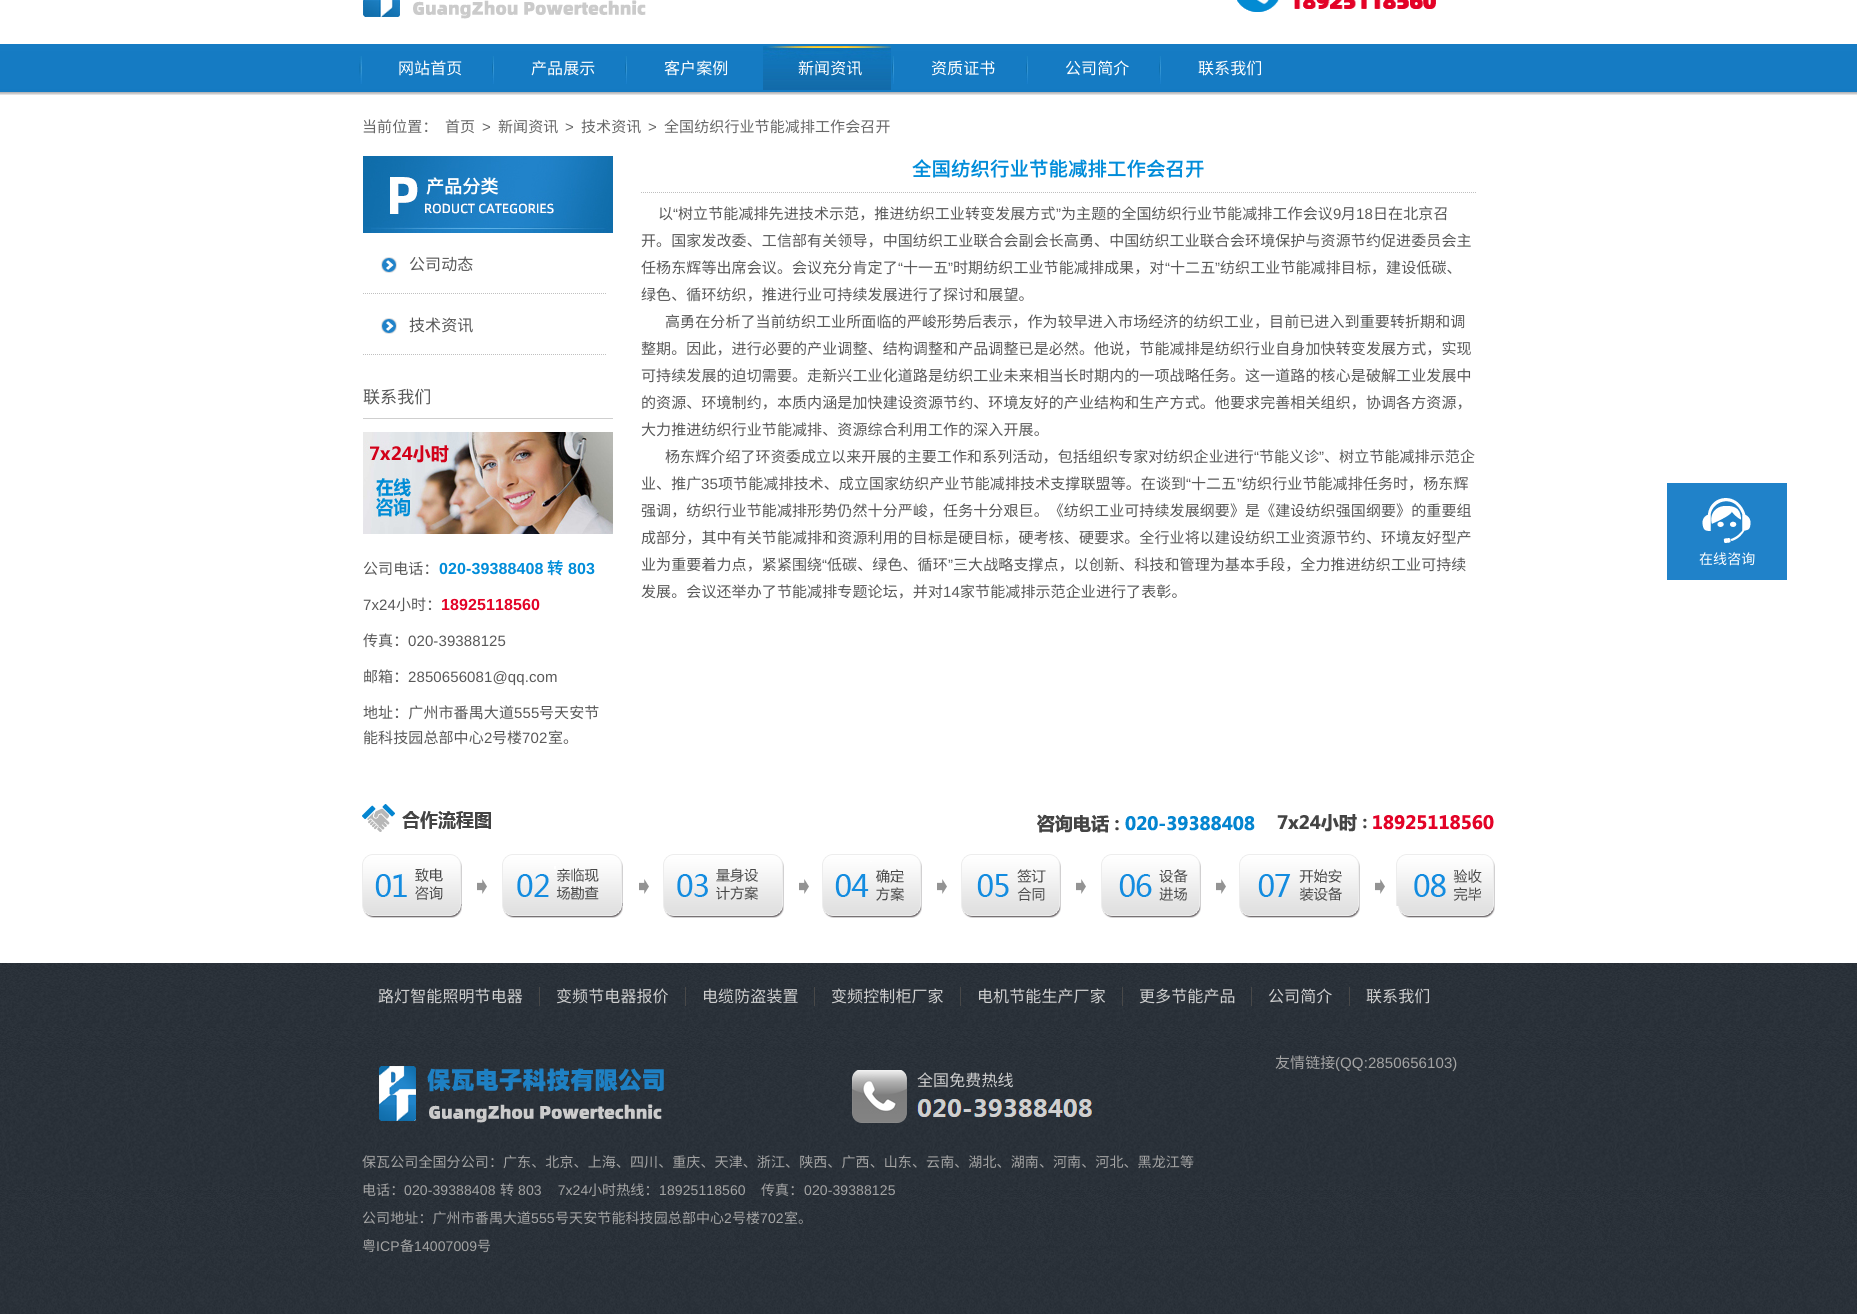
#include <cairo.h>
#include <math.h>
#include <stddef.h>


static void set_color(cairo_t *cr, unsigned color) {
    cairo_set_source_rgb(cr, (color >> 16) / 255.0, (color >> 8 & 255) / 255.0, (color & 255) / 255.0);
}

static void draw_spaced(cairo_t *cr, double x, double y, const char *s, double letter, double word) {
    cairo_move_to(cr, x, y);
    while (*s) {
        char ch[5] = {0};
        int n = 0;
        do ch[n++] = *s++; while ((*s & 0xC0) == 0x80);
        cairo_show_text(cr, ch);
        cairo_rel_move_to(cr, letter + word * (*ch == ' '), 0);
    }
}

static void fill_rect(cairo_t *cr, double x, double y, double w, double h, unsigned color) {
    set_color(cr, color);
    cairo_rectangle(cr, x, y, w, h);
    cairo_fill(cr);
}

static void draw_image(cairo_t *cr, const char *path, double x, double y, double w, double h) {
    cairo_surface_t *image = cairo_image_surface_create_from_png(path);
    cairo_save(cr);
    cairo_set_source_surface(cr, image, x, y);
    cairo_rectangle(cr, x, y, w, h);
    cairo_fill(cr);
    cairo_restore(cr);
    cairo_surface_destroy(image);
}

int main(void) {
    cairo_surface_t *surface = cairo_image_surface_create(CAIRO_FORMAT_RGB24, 1857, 1314);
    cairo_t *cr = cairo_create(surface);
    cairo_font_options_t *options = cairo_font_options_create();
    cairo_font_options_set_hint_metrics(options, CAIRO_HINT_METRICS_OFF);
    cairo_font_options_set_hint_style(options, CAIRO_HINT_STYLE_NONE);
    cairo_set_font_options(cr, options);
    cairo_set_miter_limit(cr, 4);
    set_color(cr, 0xFFFFFF);
    cairo_paint(cr);
    draw_image(cr, "assets/img1.png", 363, 0, 283, 19);
    draw_image(cr, "assets/img2.png", 1237, 0, 199, 12);
    draw_image(cr, "assets/img3.png", 1237, 0, 196, 12);
    draw_image(cr, "assets/img4.png", 0, 44, 1857, 51);
    draw_image(cr, "assets/img5.png", 359, 56, 3, 28);
    cairo_select_font_face(cr, "Noto Sans CJK SC", CAIRO_FONT_SLANT_NORMAL, CAIRO_FONT_WEIGHT_NORMAL);
    cairo_set_font_size(cr, 16);
    set_color(cr, 0xFFFFFF);
    draw_spaced(cr, 398, 74, "网站首页", 0.1, 0);
    draw_image(cr, "assets/img6.png", 492, 56, 2, 28);
    draw_spaced(cr, 531, 74, "产品展示", 0.1, 0);
    draw_image(cr, "assets/img6.png", 625, 56, 2, 28);
    draw_spaced(cr, 664, 74, "客户案例", 0.1, 0);
    draw_image(cr, "assets/img7.png", 763, 46, 128, 44);
    draw_spaced(cr, 798, 74, "新闻资讯", 0.1, 0);
    draw_image(cr, "assets/img6.png", 892, 56, 2, 28);
    draw_spaced(cr, 931, 74, "资质证书", 0.1, 0);
    draw_image(cr, "assets/img6.png", 1026, 56, 2, 28);
    draw_spaced(cr, 1065, 74, "公司简介", 0.1, 0);
    draw_image(cr, "assets/img6.png", 1159, 56, 2, 28);
    draw_spaced(cr, 1198, 74, "联系我们", 0.1, 0);
    cairo_set_font_size(cr, 15);
    set_color(cr, 0x666666);
    draw_spaced(cr, 362, 132, "当前位置：", 0.1, 0);
    draw_spaced(cr, 445, 132, "首页", 0.1, 0);
    cairo_select_font_face(cr, "Liberation Sans", CAIRO_FONT_SLANT_NORMAL, CAIRO_FONT_WEIGHT_NORMAL);
    draw_spaced(cr, 482, 132, ">", 0.1, 0);
    cairo_select_font_face(cr, "Noto Sans CJK SC", CAIRO_FONT_SLANT_NORMAL, CAIRO_FONT_WEIGHT_NORMAL);
    draw_spaced(cr, 498, 132, "新闻资讯", 0.1, 0);
    cairo_select_font_face(cr, "Liberation Sans", CAIRO_FONT_SLANT_NORMAL, CAIRO_FONT_WEIGHT_NORMAL);
    draw_spaced(cr, 565, 132, ">", 0.1, 0);
    cairo_select_font_face(cr, "Noto Sans CJK SC", CAIRO_FONT_SLANT_NORMAL, CAIRO_FONT_WEIGHT_NORMAL);
    draw_spaced(cr, 581, 132, "技术资讯", 0.1, 0);
    cairo_select_font_face(cr, "Liberation Sans", CAIRO_FONT_SLANT_NORMAL, CAIRO_FONT_WEIGHT_NORMAL);
    draw_spaced(cr, 648, 132, ">", 0.1, 0);
    cairo_select_font_face(cr, "Noto Sans CJK SC", CAIRO_FONT_SLANT_NORMAL, CAIRO_FONT_WEIGHT_NORMAL);
    draw_spaced(cr, 664, 132, "全国纺织行业节能减排工作会召开", 0.1, 0);
    draw_image(cr, "assets/img8.png", 363, 156, 250, 77);
    cairo_select_font_face(cr, "Noto Sans CJK SC", CAIRO_FONT_SLANT_NORMAL, CAIRO_FONT_WEIGHT_BOLD);
    cairo_set_font_size(cr, 18);
    set_color(cr, 0xFFFFFF);
    draw_spaced(cr, 426, 193, "产品分类", 0.1, 0);
    cairo_new_path(cr);
    cairo_move_to(cr, 363, 293.5);
    cairo_line_to(cr, 607, 293.5);
    set_color(cr, 0xC0C0C0);
    cairo_set_line_width(cr, 1);
    cairo_set_dash(cr, (double[]){1, 1}, 2, 0);
    cairo_stroke(cr);
    draw_image(cr, "assets/img9.png", 381, 257, 16, 16);
    cairo_select_font_face(cr, "Noto Sans CJK SC", CAIRO_FONT_SLANT_NORMAL, CAIRO_FONT_WEIGHT_NORMAL);
    cairo_set_font_size(cr, 16);
    set_color(cr, 0x585858);
    draw_spaced(cr, 409, 270, "公司动态", 0.1, 0);
    cairo_new_path(cr);
    cairo_move_to(cr, 363, 354.5);
    cairo_line_to(cr, 607, 354.5);
    set_color(cr, 0xC0C0C0);
    cairo_stroke(cr);
    draw_image(cr, "assets/img9.png", 381, 318, 16, 16);
    set_color(cr, 0x585858);
    draw_spaced(cr, 409, 331, "技术资讯", 0.1, 0);
    fill_rect(cr, 363, 418, 250, 1, 0xCFCFCF);
    cairo_set_font_size(cr, 17);
    set_color(cr, 0x585858);
    draw_spaced(cr, 363, 403, "联系我们", 0.1, 0);
    draw_image(cr, "assets/img10.png", 363, 432, 250, 102);
    cairo_set_font_size(cr, 15);
    draw_spaced(cr, 363, 574, "公司电话：", 0.1, 0);
    cairo_select_font_face(cr, "Liberation Sans", CAIRO_FONT_SLANT_NORMAL, CAIRO_FONT_WEIGHT_BOLD);
    cairo_set_font_size(cr, 16);
    set_color(cr, 0x008CD9);
    draw_spaced(cr, 439, 574, "020-39388408", 0.1, 0);
    cairo_select_font_face(cr, "Noto Sans CJK SC", CAIRO_FONT_SLANT_NORMAL, CAIRO_FONT_WEIGHT_BOLD);
    draw_spaced(cr, 547, 574, "转", 0.1, 0);
    cairo_select_font_face(cr, "Liberation Sans", CAIRO_FONT_SLANT_NORMAL, CAIRO_FONT_WEIGHT_BOLD);
    draw_spaced(cr, 568, 574, "803", 0.1, 0);
    cairo_select_font_face(cr, "Liberation Sans", CAIRO_FONT_SLANT_NORMAL, CAIRO_FONT_WEIGHT_NORMAL);
    cairo_set_font_size(cr, 15);
    set_color(cr, 0x585858);
    draw_spaced(cr, 363, 610, "7x24", 0.1, 0);
    cairo_select_font_face(cr, "Noto Sans CJK SC", CAIRO_FONT_SLANT_NORMAL, CAIRO_FONT_WEIGHT_NORMAL);
    draw_spaced(cr, 396, 610, "小时：", 0.1, 0);
    cairo_select_font_face(cr, "Liberation Sans", CAIRO_FONT_SLANT_NORMAL, CAIRO_FONT_WEIGHT_BOLD);
    cairo_set_font_size(cr, 16);
    set_color(cr, 0xE30227);
    draw_spaced(cr, 441, 610, "18925118560", 0.1, 0);
    cairo_select_font_face(cr, "Noto Sans CJK SC", CAIRO_FONT_SLANT_NORMAL, CAIRO_FONT_WEIGHT_NORMAL);
    cairo_set_font_size(cr, 15);
    set_color(cr, 0x585858);
    draw_spaced(cr, 363, 646, "传真：", 0.1, 0);
    cairo_select_font_face(cr, "Liberation Sans", CAIRO_FONT_SLANT_NORMAL, CAIRO_FONT_WEIGHT_NORMAL);
    draw_spaced(cr, 408, 646, "020-39388125", 0.1, 0);
    cairo_select_font_face(cr, "Noto Sans CJK SC", CAIRO_FONT_SLANT_NORMAL, CAIRO_FONT_WEIGHT_NORMAL);
    draw_spaced(cr, 363, 682, "邮箱：", 0.1, 0);
    cairo_select_font_face(cr, "Liberation Sans", CAIRO_FONT_SLANT_NORMAL, CAIRO_FONT_WEIGHT_NORMAL);
    draw_spaced(cr, 408, 682, "2850656081@qq.com", 0.1, 0);
    cairo_select_font_face(cr, "Noto Sans CJK SC", CAIRO_FONT_SLANT_NORMAL, CAIRO_FONT_WEIGHT_NORMAL);
    draw_spaced(cr, 363, 718, "地址：广州市番禺大道", 0.1, 0);
    cairo_select_font_face(cr, "Liberation Sans", CAIRO_FONT_SLANT_NORMAL, CAIRO_FONT_WEIGHT_NORMAL);
    draw_spaced(cr, 514, 718, "555", 0.1, 0);
    cairo_select_font_face(cr, "Noto Sans CJK SC", CAIRO_FONT_SLANT_NORMAL, CAIRO_FONT_WEIGHT_NORMAL);
    draw_spaced(cr, 539, 718, "号天安节", 0.1, 0);
    draw_spaced(cr, 363, 743, "能科技园总部中心", 0.1, 0);
    cairo_select_font_face(cr, "Liberation Sans", CAIRO_FONT_SLANT_NORMAL, CAIRO_FONT_WEIGHT_NORMAL);
    draw_spaced(cr, 484, 743, "2", 0.1, 0);
    cairo_select_font_face(cr, "Noto Sans CJK SC", CAIRO_FONT_SLANT_NORMAL, CAIRO_FONT_WEIGHT_NORMAL);
    draw_spaced(cr, 492, 743, "号楼", 0.1, 0);
    cairo_select_font_face(cr, "Liberation Sans", CAIRO_FONT_SLANT_NORMAL, CAIRO_FONT_WEIGHT_NORMAL);
    draw_spaced(cr, 522, 743, "702", 0.1, 0);
    cairo_select_font_face(cr, "Noto Sans CJK SC", CAIRO_FONT_SLANT_NORMAL, CAIRO_FONT_WEIGHT_NORMAL);
    draw_spaced(cr, 548, 743, "室。", 0.1, 0);
    cairo_new_path(cr);
    cairo_move_to(cr, 641, 192.5);
    cairo_line_to(cr, 1476, 192.5);
    set_color(cr, 0xBFBFBF);
    cairo_stroke(cr);
    cairo_select_font_face(cr, "Noto Sans CJK SC", CAIRO_FONT_SLANT_NORMAL, CAIRO_FONT_WEIGHT_BOLD);
    cairo_set_font_size(cr, 19);
    set_color(cr, 0x008CD9);
    draw_spaced(cr, 912, 176, "全国纺织行业节能减排工作会召开", 0.5, 0);
    cairo_select_font_face(cr, "Noto Sans CJK SC", CAIRO_FONT_SLANT_NORMAL, CAIRO_FONT_WEIGHT_NORMAL);
    cairo_set_font_size(cr, 15);
    set_color(cr, 0x585858);
    draw_spaced(cr, 658, 219, "以", 0.1, 0);
    cairo_select_font_face(cr, "Liberation Sans", CAIRO_FONT_SLANT_NORMAL, CAIRO_FONT_WEIGHT_NORMAL);
    draw_spaced(cr, 673, 219, "“", 0.1, 0);
    cairo_select_font_face(cr, "Noto Sans CJK SC", CAIRO_FONT_SLANT_NORMAL, CAIRO_FONT_WEIGHT_NORMAL);
    draw_spaced(cr, 678, 219, "树立节能减排先进技术示范，推进纺织工业转变发展方式", 0.1, 0);
    cairo_select_font_face(cr, "Liberation Sans", CAIRO_FONT_SLANT_NORMAL, CAIRO_FONT_WEIGHT_NORMAL);
    draw_spaced(cr, 1056, 219, "”", 0.1, 0);
    cairo_select_font_face(cr, "Noto Sans CJK SC", CAIRO_FONT_SLANT_NORMAL, CAIRO_FONT_WEIGHT_NORMAL);
    draw_spaced(cr, 1061, 219, "为主题的全国纺织行业节能减排工作会议", 0.1, 0);
    cairo_select_font_face(cr, "Liberation Sans", CAIRO_FONT_SLANT_NORMAL, CAIRO_FONT_WEIGHT_NORMAL);
    draw_spaced(cr, 1333, 219, "9", 0.1, 0);
    cairo_select_font_face(cr, "Noto Sans CJK SC", CAIRO_FONT_SLANT_NORMAL, CAIRO_FONT_WEIGHT_NORMAL);
    draw_spaced(cr, 1341, 219, "月", 0.1, 0);
    cairo_select_font_face(cr, "Liberation Sans", CAIRO_FONT_SLANT_NORMAL, CAIRO_FONT_WEIGHT_NORMAL);
    draw_spaced(cr, 1356, 219, "18", 0.1, 0);
    cairo_select_font_face(cr, "Noto Sans CJK SC", CAIRO_FONT_SLANT_NORMAL, CAIRO_FONT_WEIGHT_NORMAL);
    draw_spaced(cr, 1373, 219, "日在北京召", 0.1, 0);
    draw_spaced(cr, 641, 246, "开。国家发改委、工信部有关领导，中国纺织工业联合会副会长高勇、中国纺织工业联合会环境保护与资源节约促进委员会主", 0.1, 0);
    draw_spaced(cr, 641, 273, "任杨东辉等出席会议。会议充分肯定了", 0.1, 0);
    cairo_select_font_face(cr, "Liberation Sans", CAIRO_FONT_SLANT_NORMAL, CAIRO_FONT_WEIGHT_NORMAL);
    draw_spaced(cr, 898, 273, "“", 0.1, 0);
    cairo_select_font_face(cr, "Noto Sans CJK SC", CAIRO_FONT_SLANT_NORMAL, CAIRO_FONT_WEIGHT_NORMAL);
    draw_spaced(cr, 903, 273, "十一五", 0.1, 0);
    cairo_select_font_face(cr, "Liberation Sans", CAIRO_FONT_SLANT_NORMAL, CAIRO_FONT_WEIGHT_NORMAL);
    draw_spaced(cr, 948, 273, "”", 0.1, 0);
    cairo_select_font_face(cr, "Noto Sans CJK SC", CAIRO_FONT_SLANT_NORMAL, CAIRO_FONT_WEIGHT_NORMAL);
    draw_spaced(cr, 953, 273, "时期纺织工业节能减排成果，对", 0.1, 0);
    cairo_select_font_face(cr, "Liberation Sans", CAIRO_FONT_SLANT_NORMAL, CAIRO_FONT_WEIGHT_NORMAL);
    draw_spaced(cr, 1165, 273, "“", 0.1, 0);
    cairo_select_font_face(cr, "Noto Sans CJK SC", CAIRO_FONT_SLANT_NORMAL, CAIRO_FONT_WEIGHT_NORMAL);
    draw_spaced(cr, 1170, 273, "十二五", 0.1, 0);
    cairo_select_font_face(cr, "Liberation Sans", CAIRO_FONT_SLANT_NORMAL, CAIRO_FONT_WEIGHT_NORMAL);
    draw_spaced(cr, 1215, 273, "”", 0.1, 0);
    cairo_select_font_face(cr, "Noto Sans CJK SC", CAIRO_FONT_SLANT_NORMAL, CAIRO_FONT_WEIGHT_NORMAL);
    draw_spaced(cr, 1220, 273, "纺织工业节能减排目标，建设低碳、", 0.1, 0);
    draw_spaced(cr, 641, 300, "绿色、循环纺织，推进行业可持续发展进行了探讨和展望。", 0.1, 0);
    draw_spaced(cr, 665, 327, "高勇在分析了当前纺织工业所面临的严峻形势后表示，作为较早进入市场经济的纺织工业，目前已进入到重要转折期和调", 0.1, 0);
    draw_spaced(cr, 641, 354, "整期。因此，进行必要的产业调整、结构调整和产品调整已是必然。他说，节能减排是纺织行业自身加快转变发展方式，实现", 0.1, 0);
    draw_spaced(cr, 641, 381, "可持续发展的迫切需要。走新兴工业化道路是纺织工业未来相当长时期内的一项战略任务。这一道路的核心是破解工业发展中", 0.1, 0);
    draw_spaced(cr, 641, 408, "的资源、环境制约，本质内涵是加快建设资源节约、环境友好的产业结构和生产方式。他要求完善相关组织，协调各方资源，", 0.1, 0);
    draw_spaced(cr, 641, 435, "大力推进纺织行业节能减排、资源综合利用工作的深入开展。", 0.1, 0);
    draw_spaced(cr, 665, 462, "杨东辉介绍了环资委成立以来开展的主要工作和系列活动，包括组织专家对纺织企业进行", 0.1, 0);
    cairo_select_font_face(cr, "Liberation Sans", CAIRO_FONT_SLANT_NORMAL, CAIRO_FONT_WEIGHT_NORMAL);
    draw_spaced(cr, 1254, 462, "“", 0.1, 0);
    cairo_select_font_face(cr, "Noto Sans CJK SC", CAIRO_FONT_SLANT_NORMAL, CAIRO_FONT_WEIGHT_NORMAL);
    draw_spaced(cr, 1259, 462, "节能义诊", 0.1, 0);
    cairo_select_font_face(cr, "Liberation Sans", CAIRO_FONT_SLANT_NORMAL, CAIRO_FONT_WEIGHT_NORMAL);
    draw_spaced(cr, 1319, 462, "”", 0.1, 0);
    cairo_select_font_face(cr, "Noto Sans CJK SC", CAIRO_FONT_SLANT_NORMAL, CAIRO_FONT_WEIGHT_NORMAL);
    draw_spaced(cr, 1324, 462, "、树立节能减排示范企", 0.1, 0);
    draw_spaced(cr, 641, 489, "业、推广", 0.1, 0);
    cairo_select_font_face(cr, "Liberation Sans", CAIRO_FONT_SLANT_NORMAL, CAIRO_FONT_WEIGHT_NORMAL);
    draw_spaced(cr, 701, 489, "35", 0.1, 0);
    cairo_select_font_face(cr, "Noto Sans CJK SC", CAIRO_FONT_SLANT_NORMAL, CAIRO_FONT_WEIGHT_NORMAL);
    draw_spaced(cr, 718, 489, "项节能减排技术、成立国家纺织产业节能减排技术支撑联盟等。在谈到", 0.1, 0);
    cairo_select_font_face(cr, "Liberation Sans", CAIRO_FONT_SLANT_NORMAL, CAIRO_FONT_WEIGHT_NORMAL);
    draw_spaced(cr, 1186, 489, "“", 0.1, 0);
    cairo_select_font_face(cr, "Noto Sans CJK SC", CAIRO_FONT_SLANT_NORMAL, CAIRO_FONT_WEIGHT_NORMAL);
    draw_spaced(cr, 1191, 489, "十二五", 0.1, 0);
    cairo_select_font_face(cr, "Liberation Sans", CAIRO_FONT_SLANT_NORMAL, CAIRO_FONT_WEIGHT_NORMAL);
    draw_spaced(cr, 1237, 489, "”", 0.1, 0);
    cairo_select_font_face(cr, "Noto Sans CJK SC", CAIRO_FONT_SLANT_NORMAL, CAIRO_FONT_WEIGHT_NORMAL);
    draw_spaced(cr, 1242, 489, "纺织行业节能减排任务时，杨东辉", 0.1, 0);
    draw_spaced(cr, 641, 516, "强调，纺织行业节能减排形势仍然十分严峻，任务十分艰巨。《纺织工业可持续发展纲要》是《建设纺织强国纲要》的重要组", 0.1, 0);
    draw_spaced(cr, 641, 543, "成部分，其中有关节能减排和资源利用的目标是硬目标，硬考核、硬要求。全行业将以建设纺织工业资源节约、环境友好型产", 0.1, 0);
    draw_spaced(cr, 641, 570, "业为重要着力点，紧紧围绕", 0.1, 0);
    cairo_select_font_face(cr, "Liberation Sans", CAIRO_FONT_SLANT_NORMAL, CAIRO_FONT_WEIGHT_NORMAL);
    draw_spaced(cr, 822, 570, "“", 0.1, 0);
    cairo_select_font_face(cr, "Noto Sans CJK SC", CAIRO_FONT_SLANT_NORMAL, CAIRO_FONT_WEIGHT_NORMAL);
    draw_spaced(cr, 827, 570, "低碳、绿色、循环", 0.1, 0);
    cairo_select_font_face(cr, "Liberation Sans", CAIRO_FONT_SLANT_NORMAL, CAIRO_FONT_WEIGHT_NORMAL);
    draw_spaced(cr, 948, 570, "”", 0.1, 0);
    cairo_select_font_face(cr, "Noto Sans CJK SC", CAIRO_FONT_SLANT_NORMAL, CAIRO_FONT_WEIGHT_NORMAL);
    draw_spaced(cr, 953, 570, "三大战略支撑点，以创新、科技和管理为基本手段，全力推进纺织工业可持续", 0.1, 0);
    draw_spaced(cr, 641, 597, "发展。会议还举办了节能减排专题论坛，并对", 0.1, 0);
    cairo_select_font_face(cr, "Liberation Sans", CAIRO_FONT_SLANT_NORMAL, CAIRO_FONT_WEIGHT_NORMAL);
    draw_spaced(cr, 943, 597, "14", 0.1, 0);
    cairo_select_font_face(cr, "Noto Sans CJK SC", CAIRO_FONT_SLANT_NORMAL, CAIRO_FONT_WEIGHT_NORMAL);
    draw_spaced(cr, 960, 597, "家节能减排示范企业进行了表彰。", 0.1, 0);
    draw_image(cr, "assets/img11.png", 362, 804, 1133, 114);
    fill_rect(cr, 1667, 483, 120, 97, 0x2082C9);
    draw_image(cr, "assets/img12.png", 1702, 498, 49, 45);
    cairo_set_font_size(cr, 14);
    set_color(cr, 0xFFFFFF);
    draw_spaced(cr, 1699, 564, "在线咨询", 0.1, 0);
    draw_image(cr, "assets/img13.png", 0, 963, 1857, 351);
    fill_rect(cr, 539, 987, 1, 19, 0x484848);
    cairo_set_font_size(cr, 16);
    set_color(cr, 0xCFCFCF);
    draw_spaced(cr, 378, 1002, "路灯智能照明节电器", 0.1, 0);
    fill_rect(cr, 685, 987, 1, 19, 0x484848);
    set_color(cr, 0xCFCFCF);
    draw_spaced(cr, 556, 1002, "变频节电器报价", 0.1, 0);
    fill_rect(cr, 814, 987, 1, 19, 0x484848);
    set_color(cr, 0xCFCFCF);
    draw_spaced(cr, 702, 1002, "电缆防盗装置", 0.1, 0);
    fill_rect(cr, 960, 987, 1, 19, 0x484848);
    set_color(cr, 0xCFCFCF);
    draw_spaced(cr, 831, 1002, "变频控制柜厂家", 0.1, 0);
    fill_rect(cr, 1122, 987, 1, 19, 0x484848);
    set_color(cr, 0xCFCFCF);
    draw_spaced(cr, 977, 1002, "电机节能生产厂家", 0.1, 0);
    fill_rect(cr, 1251, 987, 1, 19, 0x484848);
    set_color(cr, 0xCFCFCF);
    draw_spaced(cr, 1139, 1002, "更多节能产品", 0.1, 0);
    fill_rect(cr, 1349, 987, 1, 19, 0x484848);
    set_color(cr, 0xCFCFCF);
    draw_spaced(cr, 1268, 1002, "公司简介", 0.1, 0);
    draw_spaced(cr, 1366, 1002, "联系我们", 0.1, 0);
    cairo_set_font_size(cr, 15);
    set_color(cr, 0xA4A4A4);
    draw_spaced(cr, 1275, 1068, "友情链接", 0.1, 0);
    cairo_select_font_face(cr, "Liberation Sans", CAIRO_FONT_SLANT_NORMAL, CAIRO_FONT_WEIGHT_NORMAL);
    draw_spaced(cr, 1335, 1068, "(QQ:2850656103)", 0.1, 0);
    draw_image(cr, "assets/img14.png", 379, 1066, 285, 57);
    draw_image(cr, "assets/img15.png", 852, 1070, 55, 53);
    cairo_select_font_face(cr, "Noto Sans CJK SC", CAIRO_FONT_SLANT_NORMAL, CAIRO_FONT_WEIGHT_NORMAL);
    cairo_set_font_size(cr, 16);
    set_color(cr, 0xCFCFCF);
    draw_spaced(cr, 917, 1086, "全国免费热线", 0.1, 0);
    draw_image(cr, "assets/img16.png", 917, 1099, 175, 18);
    cairo_set_font_size(cr, 14);
    set_color(cr, 0xA4A4A4);
    draw_spaced(cr, 362, 1167, "保瓦公司全国分公司：广东、北京、上海、四川、重庆、天津、浙江、陕西、广西、山东、云南、湖北、湖南、河南、河北、黑龙江等", 0.1, 0);
    draw_spaced(cr, 362, 1195, "电话：", 0.1, 0);
    cairo_select_font_face(cr, "Liberation Sans", CAIRO_FONT_SLANT_NORMAL, CAIRO_FONT_WEIGHT_NORMAL);
    draw_spaced(cr, 404, 1195, "020-39388408", 0.1, 0);
    cairo_select_font_face(cr, "Noto Sans CJK SC", CAIRO_FONT_SLANT_NORMAL, CAIRO_FONT_WEIGHT_NORMAL);
    draw_spaced(cr, 500, 1195, "转", 0.1, 0);
    cairo_select_font_face(cr, "Liberation Sans", CAIRO_FONT_SLANT_NORMAL, CAIRO_FONT_WEIGHT_NORMAL);
    draw_spaced(cr, 518, 1195, "803    7x24", 0.1, 0);
    cairo_select_font_face(cr, "Noto Sans CJK SC", CAIRO_FONT_SLANT_NORMAL, CAIRO_FONT_WEIGHT_NORMAL);
    draw_spaced(cr, 588, 1195, "小时热线：", 0.1, 0);
    cairo_select_font_face(cr, "Liberation Sans", CAIRO_FONT_SLANT_NORMAL, CAIRO_FONT_WEIGHT_NORMAL);
    draw_spaced(cr, 659, 1195, "18925118560", 0.1, 0);
    cairo_select_font_face(cr, "Noto Sans CJK SC", CAIRO_FONT_SLANT_NORMAL, CAIRO_FONT_WEIGHT_NORMAL);
    draw_spaced(cr, 761, 1195, "传真：", 0.1, 0);
    cairo_select_font_face(cr, "Liberation Sans", CAIRO_FONT_SLANT_NORMAL, CAIRO_FONT_WEIGHT_NORMAL);
    draw_spaced(cr, 804, 1195, "020-39388125", 0.1, 0);
    cairo_select_font_face(cr, "Noto Sans CJK SC", CAIRO_FONT_SLANT_NORMAL, CAIRO_FONT_WEIGHT_NORMAL);
    draw_spaced(cr, 362, 1223, "公司地址：广州市番禺大道", 0.1, 0);
    cairo_select_font_face(cr, "Liberation Sans", CAIRO_FONT_SLANT_NORMAL, CAIRO_FONT_WEIGHT_NORMAL);
    draw_spaced(cr, 531, 1223, "555", 0.1, 0);
    cairo_select_font_face(cr, "Noto Sans CJK SC", CAIRO_FONT_SLANT_NORMAL, CAIRO_FONT_WEIGHT_NORMAL);
    draw_spaced(cr, 555, 1223, "号天安节能科技园总部中心", 0.1, 0);
    cairo_select_font_face(cr, "Liberation Sans", CAIRO_FONT_SLANT_NORMAL, CAIRO_FONT_WEIGHT_NORMAL);
    draw_spaced(cr, 724, 1223, "2", 0.1, 0);
    cairo_select_font_face(cr, "Noto Sans CJK SC", CAIRO_FONT_SLANT_NORMAL, CAIRO_FONT_WEIGHT_NORMAL);
    draw_spaced(cr, 732, 1223, "号楼", 0.1, 0);
    cairo_select_font_face(cr, "Liberation Sans", CAIRO_FONT_SLANT_NORMAL, CAIRO_FONT_WEIGHT_NORMAL);
    draw_spaced(cr, 760, 1223, "702", 0.1, 0);
    cairo_select_font_face(cr, "Noto Sans CJK SC", CAIRO_FONT_SLANT_NORMAL, CAIRO_FONT_WEIGHT_NORMAL);
    draw_spaced(cr, 784, 1223, "室。", 0.1, 0);
    draw_spaced(cr, 362, 1251, "粤", 0.1, 0);
    cairo_select_font_face(cr, "Liberation Sans", CAIRO_FONT_SLANT_NORMAL, CAIRO_FONT_WEIGHT_NORMAL);
    draw_spaced(cr, 376, 1251, "ICP", 0.1, 0);
    cairo_select_font_face(cr, "Noto Sans CJK SC", CAIRO_FONT_SLANT_NORMAL, CAIRO_FONT_WEIGHT_NORMAL);
    draw_spaced(cr, 400, 1251, "备", 0.1, 0);
    cairo_select_font_face(cr, "Liberation Sans", CAIRO_FONT_SLANT_NORMAL, CAIRO_FONT_WEIGHT_NORMAL);
    draw_spaced(cr, 414, 1251, "14007009", 0.1, 0);
    cairo_select_font_face(cr, "Noto Sans CJK SC", CAIRO_FONT_SLANT_NORMAL, CAIRO_FONT_WEIGHT_NORMAL);
    draw_spaced(cr, 477, 1251, "号", 0.1, 0);
    cairo_surface_write_to_png(surface, "output.png");
    cairo_font_options_destroy(options);
    cairo_destroy(cr);
    cairo_surface_destroy(surface);
    return 0;
}
